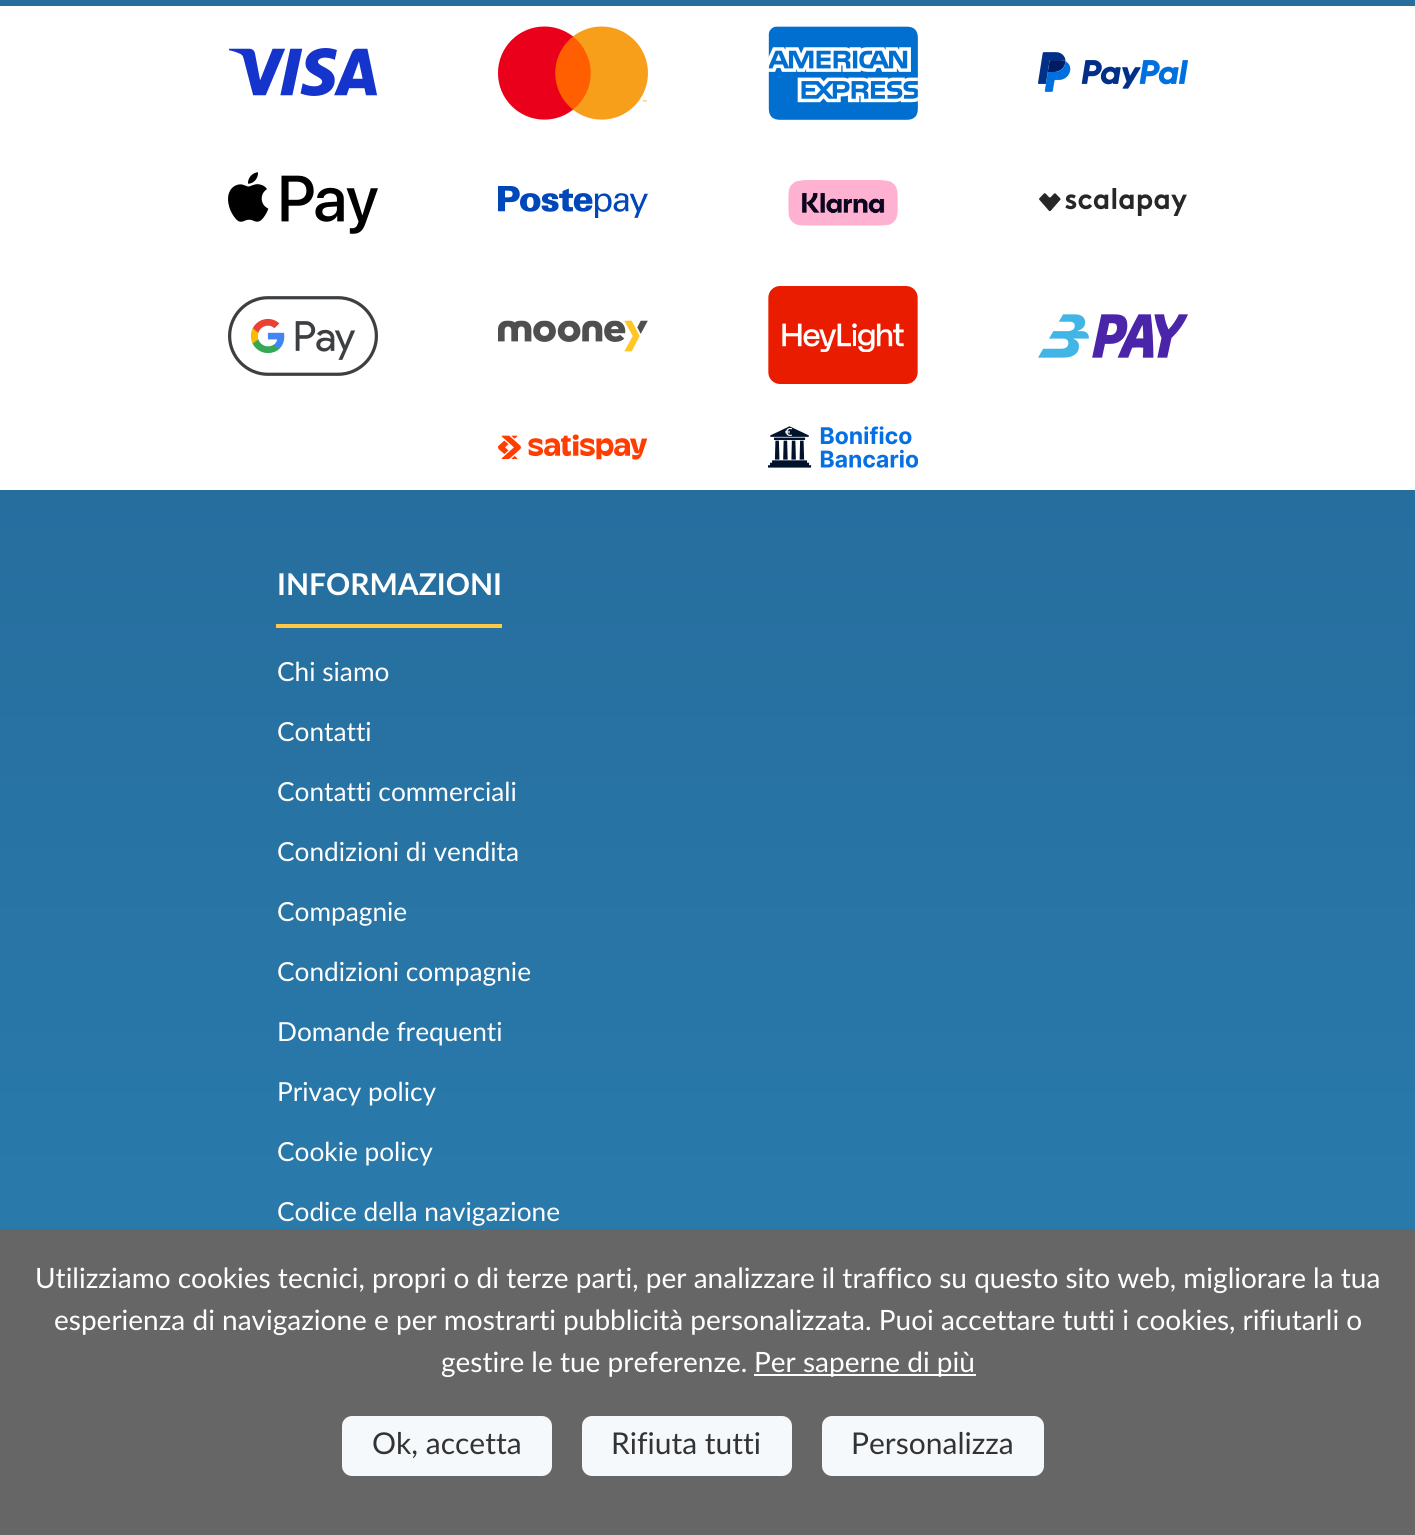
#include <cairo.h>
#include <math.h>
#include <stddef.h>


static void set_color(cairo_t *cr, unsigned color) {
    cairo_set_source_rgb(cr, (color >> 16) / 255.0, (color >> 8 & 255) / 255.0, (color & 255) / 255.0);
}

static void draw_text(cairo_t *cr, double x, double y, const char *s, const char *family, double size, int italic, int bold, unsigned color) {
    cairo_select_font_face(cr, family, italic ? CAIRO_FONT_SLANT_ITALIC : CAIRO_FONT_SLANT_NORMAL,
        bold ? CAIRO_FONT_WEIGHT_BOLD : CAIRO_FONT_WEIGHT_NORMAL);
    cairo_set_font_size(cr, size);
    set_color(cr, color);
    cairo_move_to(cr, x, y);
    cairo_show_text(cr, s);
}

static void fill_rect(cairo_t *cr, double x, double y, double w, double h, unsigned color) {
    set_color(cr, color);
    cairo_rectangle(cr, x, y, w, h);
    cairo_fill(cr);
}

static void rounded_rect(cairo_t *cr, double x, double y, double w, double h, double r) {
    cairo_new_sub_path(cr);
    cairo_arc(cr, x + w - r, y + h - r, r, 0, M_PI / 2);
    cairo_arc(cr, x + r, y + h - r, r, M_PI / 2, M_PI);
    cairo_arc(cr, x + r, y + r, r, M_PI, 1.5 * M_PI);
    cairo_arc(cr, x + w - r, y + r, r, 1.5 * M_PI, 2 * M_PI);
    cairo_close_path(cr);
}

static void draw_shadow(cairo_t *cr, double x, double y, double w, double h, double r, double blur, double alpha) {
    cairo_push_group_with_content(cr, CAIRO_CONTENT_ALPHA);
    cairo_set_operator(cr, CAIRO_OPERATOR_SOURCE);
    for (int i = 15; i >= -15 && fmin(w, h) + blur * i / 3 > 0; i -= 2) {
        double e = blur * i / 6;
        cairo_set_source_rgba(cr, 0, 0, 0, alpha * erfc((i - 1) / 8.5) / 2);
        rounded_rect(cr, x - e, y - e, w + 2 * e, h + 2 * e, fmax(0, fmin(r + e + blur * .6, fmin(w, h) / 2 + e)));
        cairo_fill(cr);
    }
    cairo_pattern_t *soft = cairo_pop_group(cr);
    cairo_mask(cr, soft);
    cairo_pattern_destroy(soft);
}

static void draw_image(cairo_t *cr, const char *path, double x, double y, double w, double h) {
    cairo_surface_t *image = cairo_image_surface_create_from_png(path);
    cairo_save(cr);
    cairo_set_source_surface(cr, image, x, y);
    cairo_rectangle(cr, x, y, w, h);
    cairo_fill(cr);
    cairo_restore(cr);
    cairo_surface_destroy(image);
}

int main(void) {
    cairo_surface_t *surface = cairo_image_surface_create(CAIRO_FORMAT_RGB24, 1415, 1535);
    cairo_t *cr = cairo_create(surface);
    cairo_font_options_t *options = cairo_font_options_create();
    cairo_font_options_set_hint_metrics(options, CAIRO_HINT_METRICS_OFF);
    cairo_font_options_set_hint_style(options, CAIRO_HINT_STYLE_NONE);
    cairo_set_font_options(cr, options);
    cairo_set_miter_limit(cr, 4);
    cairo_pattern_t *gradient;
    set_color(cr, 0xFFFFFF);
    cairo_paint(cr);
    fill_rect(cr, 0, 0, 1415, 6, 0x266E9E);
    draw_image(cr, "assets/img1.png", 229, 48, 148, 48);
    draw_image(cr, "assets/img2.png", 498, 26, 150, 94);
    draw_image(cr, "assets/img3.png", 768, 26, 150, 94);
    draw_image(cr, "assets/img4.png", 1038, 52, 150, 40);
    draw_image(cr, "assets/img5.png", 228, 172, 150, 62);
    draw_image(cr, "assets/img6.png", 498, 186, 150, 32);
    draw_image(cr, "assets/img7.png", 788, 180, 110, 46);
    draw_image(cr, "assets/img8.png", 1039, 188, 148, 28);
    draw_image(cr, "assets/img9.png", 228, 296, 150, 80);
    draw_image(cr, "assets/img10.png", 498, 320, 150, 32);
    draw_image(cr, "assets/img11.png", 768, 286, 150, 98);
    draw_image(cr, "assets/img12.png", 1038, 314, 150, 44);
    draw_image(cr, "assets/img13.png", 498, 434, 150, 26);
    draw_image(cr, "assets/img14.png", 768, 426, 150, 42);
    gradient = cairo_pattern_create_linear(708, 490, 708, 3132);
    cairo_pattern_add_color_stop_rgba(gradient, 0, 0.149, 0.431, 0.62, 1);
    cairo_pattern_add_color_stop_rgba(gradient, 1, 0.188, 0.596, 0.804, 1);
    cairo_set_source(cr, gradient);
    cairo_pattern_destroy(gradient);
    cairo_rectangle(cr, 0, 490, 1415, 740);
    cairo_fill(cr);
    fill_rect(cr, 276, 624, 226, 4, 0xFFC845);
    draw_text(cr, 277, 595, "INFORMAZIONI", "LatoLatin", 30, 0, 1, 0xFFFFFF);
    draw_text(cr, 277, 681, "Chi siamo", "LatoLatin", 26.25, 0, 0, 0xFFFFFF);
    draw_text(cr, 277, 741, "Contatti", "LatoLatin", 26.25, 0, 0, 0xFFFFFF);
    draw_text(cr, 277, 801, "Contatti commerciali", "LatoLatin", 26.25, 0, 0, 0xFFFFFF);
    draw_text(cr, 277, 861, "Condizioni di vendita", "LatoLatin", 26.25, 0, 0, 0xFFFFFF);
    draw_text(cr, 277, 921, "Compagnie", "LatoLatin", 26.25, 0, 0, 0xFFFFFF);
    draw_text(cr, 277, 981, "Condizioni compagnie", "LatoLatin", 26.25, 0, 0, 0xFFFFFF);
    draw_text(cr, 277, 1041, "Domande frequenti", "LatoLatin", 26.25, 0, 0, 0xFFFFFF);
    draw_text(cr, 277, 1101, "Privacy policy", "LatoLatin", 26.25, 0, 0, 0xFFFFFF);
    draw_text(cr, 277, 1161, "Cookie policy", "LatoLatin", 26.25, 0, 0, 0xFFFFFF);
    draw_text(cr, 277, 1221, "Codice della navigazione", "LatoLatin", 26.25, 0, 0, 0xFFFFFF);
    set_color(cr, 0x000000);
    draw_shadow(cr, 0, 1246, 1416, 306, 0, 15, 0.15);
    fill_rect(cr, 0, 1230, 1415, 305, 0x666666);
    draw_text(cr, 35, 1288, "Utilizziamo cookies tecnici, propri o di terze parti, per analizzare il traffico su questo sito web, migliorare la tua", "LatoLatin", 28, 0, 0, 0xFFFFFF);
    draw_text(cr, 54, 1330, "esperienza di navigazione e per mostrarti pubblicità personalizzata. Puoi accettare tutti i cookies, rifiutarli o", "LatoLatin", 28, 0, 0, 0xFFFFFF);
    draw_text(cr, 441, 1372, "gestire le tue preferenze.", "LatoLatin", 28, 0, 0, 0xFFFFFF);
    fill_rect(cr, 754, 1374, 222, 2, 0xFFFFFF);
    draw_text(cr, 754, 1372, "Per saperne di più", "LatoLatin", 28, 0, 0, 0xFFFFFF);
    set_color(cr, 0xF5F9FC);
    rounded_rect(cr, 342, 1416, 210, 60, 10);
    cairo_fill(cr);
    draw_text(cr, 372, 1454, "Ok, accetta", "LatoLatin", 30, 0, 0, 0x333333);
    set_color(cr, 0xF5F9FC);
    rounded_rect(cr, 582, 1416, 210, 60, 10);
    cairo_fill(cr);
    draw_text(cr, 611, 1454, "Rifiuta tutti", "LatoLatin", 30, 0, 0, 0x333333);
    set_color(cr, 0xF5F9FC);
    rounded_rect(cr, 822, 1416, 222, 60, 10);
    cairo_fill(cr);
    draw_text(cr, 851, 1454, "Personalizza", "LatoLatin", 30, 0, 0, 0x333333);
    cairo_surface_write_to_png(surface, "output.png");
    cairo_font_options_destroy(options);
    cairo_destroy(cr);
    cairo_surface_destroy(surface);
    return 0;
}
